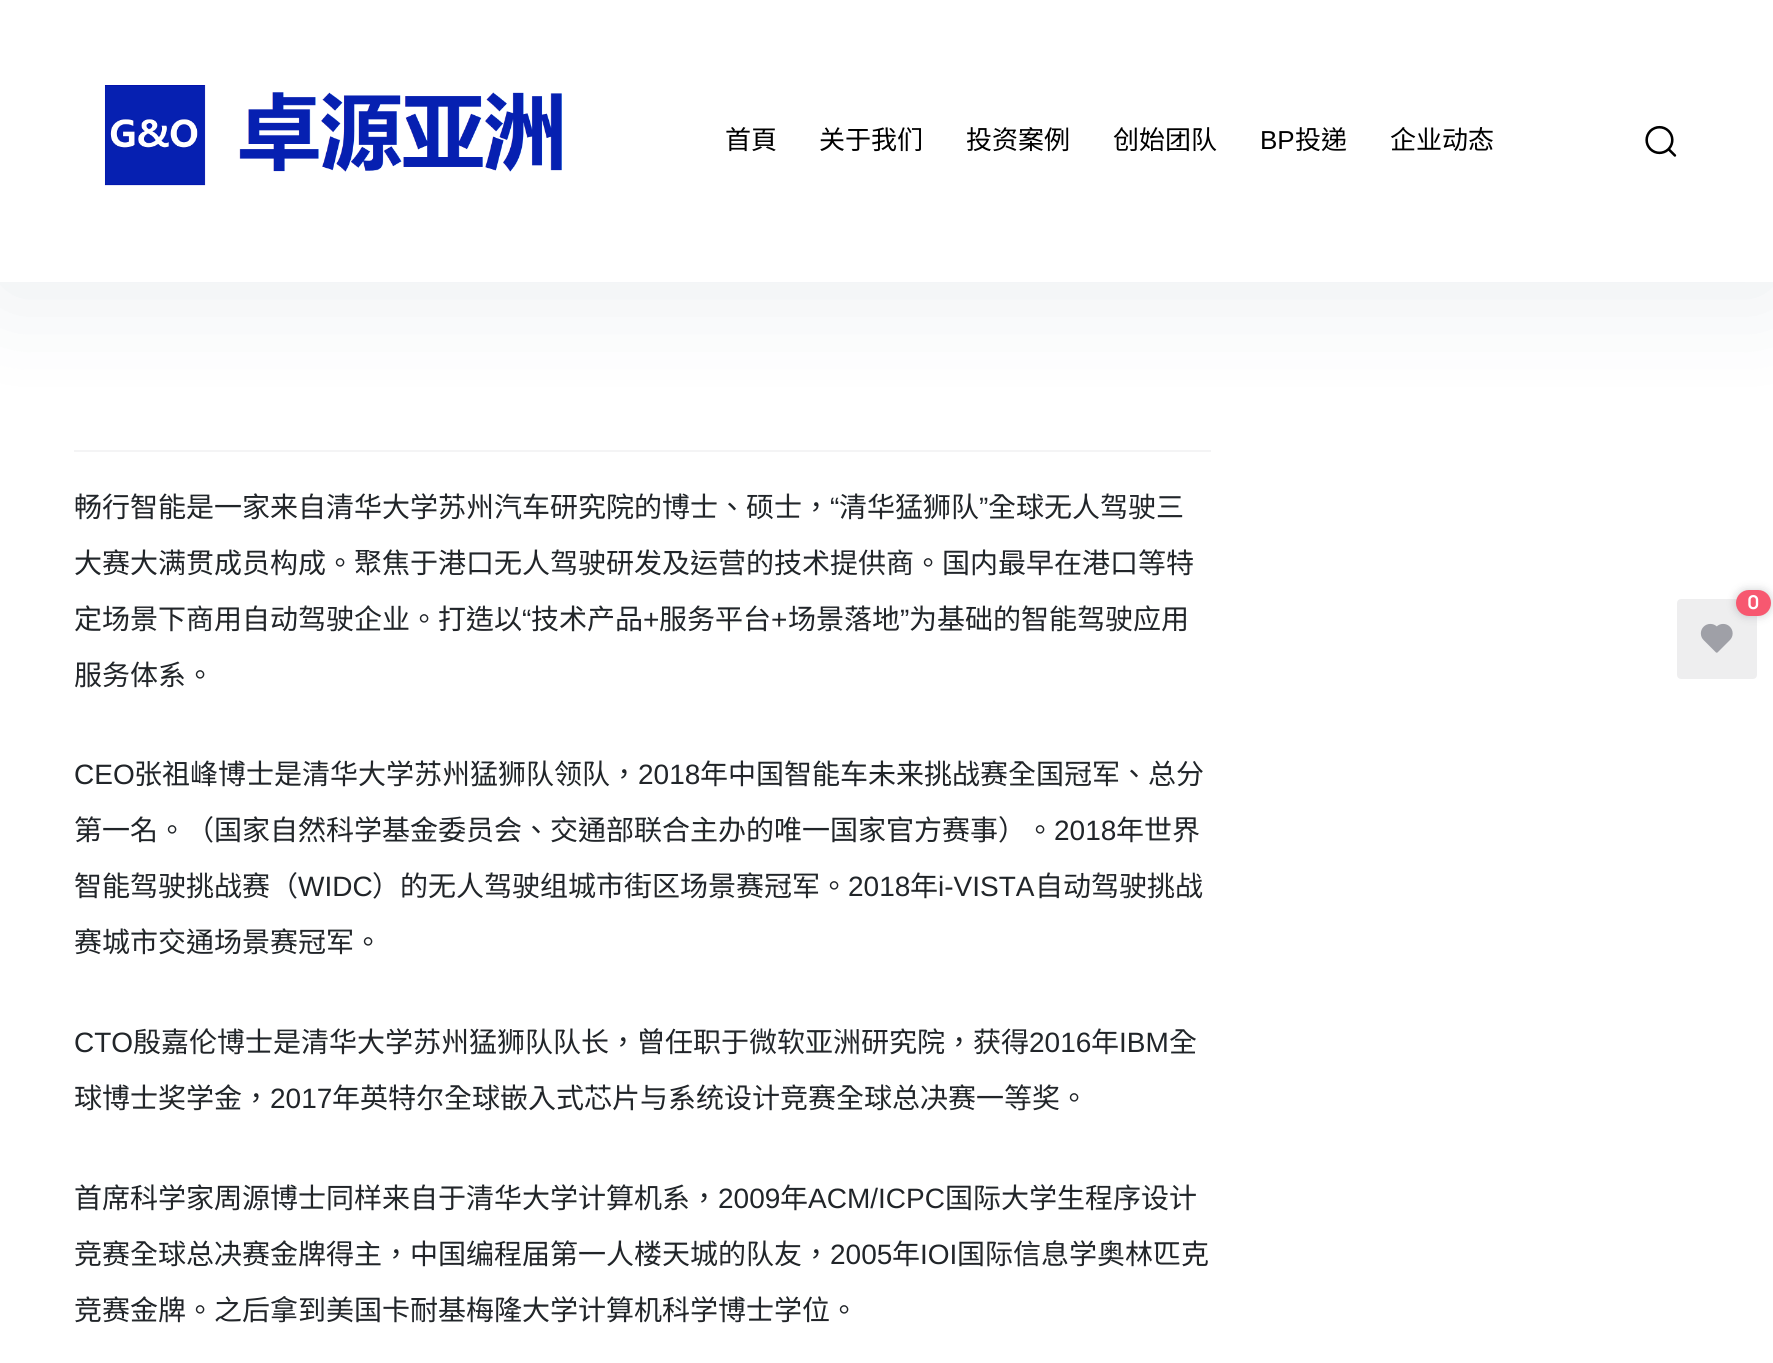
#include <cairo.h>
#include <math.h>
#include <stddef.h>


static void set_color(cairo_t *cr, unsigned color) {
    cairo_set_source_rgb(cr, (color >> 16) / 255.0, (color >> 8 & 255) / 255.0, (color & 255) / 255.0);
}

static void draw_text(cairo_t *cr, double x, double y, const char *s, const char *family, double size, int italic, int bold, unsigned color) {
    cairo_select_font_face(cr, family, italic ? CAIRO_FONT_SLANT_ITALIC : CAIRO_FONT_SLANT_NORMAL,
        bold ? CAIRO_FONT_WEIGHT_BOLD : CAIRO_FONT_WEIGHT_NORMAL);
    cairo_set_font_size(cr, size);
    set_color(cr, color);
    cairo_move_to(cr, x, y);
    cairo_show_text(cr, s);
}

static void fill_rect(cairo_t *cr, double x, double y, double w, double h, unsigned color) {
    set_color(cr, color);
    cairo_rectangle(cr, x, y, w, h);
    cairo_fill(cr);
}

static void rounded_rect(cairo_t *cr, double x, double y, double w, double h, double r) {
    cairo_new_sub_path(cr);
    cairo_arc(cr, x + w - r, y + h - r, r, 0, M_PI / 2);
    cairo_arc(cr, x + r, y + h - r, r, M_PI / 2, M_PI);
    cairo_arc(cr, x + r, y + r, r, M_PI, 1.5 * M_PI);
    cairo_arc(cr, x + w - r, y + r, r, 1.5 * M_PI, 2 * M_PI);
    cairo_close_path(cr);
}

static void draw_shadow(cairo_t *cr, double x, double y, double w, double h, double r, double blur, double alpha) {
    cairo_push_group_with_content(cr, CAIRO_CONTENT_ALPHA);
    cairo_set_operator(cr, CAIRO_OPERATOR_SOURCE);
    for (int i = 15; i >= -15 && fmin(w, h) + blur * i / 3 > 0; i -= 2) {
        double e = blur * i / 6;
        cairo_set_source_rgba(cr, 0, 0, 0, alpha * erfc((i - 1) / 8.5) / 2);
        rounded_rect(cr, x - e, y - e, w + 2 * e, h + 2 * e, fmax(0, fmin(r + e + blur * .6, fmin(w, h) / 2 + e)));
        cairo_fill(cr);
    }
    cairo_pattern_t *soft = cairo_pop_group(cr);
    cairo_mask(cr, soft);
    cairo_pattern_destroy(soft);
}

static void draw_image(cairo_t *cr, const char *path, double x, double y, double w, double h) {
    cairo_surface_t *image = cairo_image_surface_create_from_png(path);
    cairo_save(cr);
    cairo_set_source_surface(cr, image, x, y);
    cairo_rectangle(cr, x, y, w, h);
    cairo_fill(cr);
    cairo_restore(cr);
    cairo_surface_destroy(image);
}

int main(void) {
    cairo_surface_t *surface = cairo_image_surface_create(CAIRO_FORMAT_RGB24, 1773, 1363);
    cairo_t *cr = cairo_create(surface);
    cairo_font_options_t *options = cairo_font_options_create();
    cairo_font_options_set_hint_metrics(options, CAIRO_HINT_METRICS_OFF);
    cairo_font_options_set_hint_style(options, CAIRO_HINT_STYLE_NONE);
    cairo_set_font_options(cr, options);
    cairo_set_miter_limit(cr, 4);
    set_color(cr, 0xFFFFFF);
    cairo_paint(cr);
    set_color(cr, 0x113A5D);
    draw_shadow(cr, 0, 9, 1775, 282, 0, 52.5, 0.1);
    fill_rect(cr, 0, 0, 1773, 282, 0xFFFFFF);
    draw_image(cr, "assets/img1.png", 104, 85, 458, 101);
    draw_text(cr, 725, 149, "首頁", "Noto Sans CJK HK", 26, 0, 0, 0x000000);
    draw_text(cr, 819, 149, "关于我们", "Noto Sans CJK HK", 26, 0, 0, 0x000000);
    draw_text(cr, 966, 149, "投资案例", "Noto Sans CJK HK", 26, 0, 0, 0x000000);
    draw_text(cr, 1113, 149, "创始团队", "Noto Sans CJK HK", 26, 0, 0, 0x000000);
    draw_text(cr, 1260, 149, "BP", "Liberation Sans", 26, 0, 0, 0x000000);
    draw_text(cr, 1295, 149, "投递", "Noto Sans CJK HK", 26, 0, 0, 0x000000);
    draw_text(cr, 1390, 149, "企业动态", "Noto Sans CJK HK", 26, 0, 0, 0x000000);
    draw_image(cr, "assets/img2.png", 1645, 125, 32, 32);
    fill_rect(cr, 74, 450, 1137, 2, 0xF4F4F5);
    draw_text(cr, 74, 517, "畅行智能是一家来自清华大学苏州汽车研究院的博士、硕士，", "Noto Sans CJK HK", 28, 0, 0, 0x212529);
    draw_text(cr, 830, 517, "“", "Liberation Sans", 28, 0, 0, 0x212529);
    draw_text(cr, 839, 517, "清华猛狮队", "Noto Sans CJK HK", 28, 0, 0, 0x212529);
    draw_text(cr, 979, 517, "”", "Liberation Sans", 28, 0, 0, 0x212529);
    draw_text(cr, 988, 517, "全球无人驾驶三", "Noto Sans CJK HK", 28, 0, 0, 0x212529);
    draw_text(cr, 74, 573, "大赛大满贯成员构成。聚焦于港口无人驾驶研发及运营的技术提供商。国内最早在港口等特", "Noto Sans CJK HK", 28, 0, 0, 0x212529);
    draw_text(cr, 74, 629, "定场景下商用自动驾驶企业。打造以", "Noto Sans CJK HK", 28, 0, 0, 0x212529);
    draw_text(cr, 522, 629, "“", "Liberation Sans", 28, 0, 0, 0x212529);
    draw_text(cr, 531, 629, "技术产品", "Noto Sans CJK HK", 28, 0, 0, 0x212529);
    draw_text(cr, 643, 629, "+", "Liberation Sans", 28, 0, 0, 0x212529);
    draw_text(cr, 659, 629, "服务平台", "Noto Sans CJK HK", 28, 0, 0, 0x212529);
    draw_text(cr, 771, 629, "+", "Liberation Sans", 28, 0, 0, 0x212529);
    draw_text(cr, 788, 629, "场景落地", "Noto Sans CJK HK", 28, 0, 0, 0x212529);
    draw_text(cr, 900, 629, "”", "Liberation Sans", 28, 0, 0, 0x212529);
    draw_text(cr, 909, 629, "为基础的智能驾驶应用", "Noto Sans CJK HK", 28, 0, 0, 0x212529);
    draw_text(cr, 74, 685, "服务体系。", "Noto Sans CJK HK", 28, 0, 0, 0x212529);
    draw_text(cr, 74, 784, "CEO", "Liberation Sans", 28, 0, 0, 0x212529);
    draw_text(cr, 134, 784, "张祖峰博士是清华大学苏州猛狮队领队，", "Noto Sans CJK HK", 28, 0, 0, 0x212529);
    draw_text(cr, 638, 784, "2018", "Liberation Sans", 28, 0, 0, 0x212529);
    draw_text(cr, 700, 784, "年中国智能车未来挑战赛全国冠军、总分", "Noto Sans CJK HK", 28, 0, 0, 0x212529);
    draw_text(cr, 74, 840, "第一名。（国家自然科学基金委员会、交通部联合主办的唯一国家官方赛事）。", "Noto Sans CJK HK", 28, 0, 0, 0x212529);
    draw_text(cr, 1054, 840, "2018", "Liberation Sans", 28, 0, 0, 0x212529);
    draw_text(cr, 1116, 840, "年世界", "Noto Sans CJK HK", 28, 0, 0, 0x212529);
    draw_text(cr, 74, 896, "智能驾驶挑战赛（", "Noto Sans CJK HK", 28, 0, 0, 0x212529);
    draw_text(cr, 298, 896, "WIDC", "Liberation Sans", 28, 0, 0, 0x212529);
    draw_text(cr, 372, 896, "）的无人驾驶组城市街区场景赛冠军。", "Noto Sans CJK HK", 28, 0, 0, 0x212529);
    draw_text(cr, 848, 896, "2018", "Liberation Sans", 28, 0, 0, 0x212529);
    draw_text(cr, 910, 896, "年", "Noto Sans CJK HK", 28, 0, 0, 0x212529);
    draw_text(cr, 938, 896, "i-VISTA", "Liberation Sans", 28, 0, 0, 0x212529);
    draw_text(cr, 1035, 896, "自动驾驶挑战", "Noto Sans CJK HK", 28, 0, 0, 0x212529);
    draw_text(cr, 74, 952, "赛城市交通场景赛冠军。", "Noto Sans CJK HK", 28, 0, 0, 0x212529);
    draw_text(cr, 74, 1052, "CTO", "Liberation Sans", 28, 0, 0, 0x212529);
    draw_text(cr, 133, 1052, "殷嘉伦博士是清华大学苏州猛狮队队长，曾任职于微软亚洲研究院，获得", "Noto Sans CJK HK", 28, 0, 0, 0x212529);
    draw_text(cr, 1029, 1052, "2016", "Liberation Sans", 28, 0, 0, 0x212529);
    draw_text(cr, 1091, 1052, "年", "Noto Sans CJK HK", 28, 0, 0, 0x212529);
    draw_text(cr, 1119, 1052, "IBM", "Liberation Sans", 28, 0, 0, 0x212529);
    draw_text(cr, 1169, 1052, "全", "Noto Sans CJK HK", 28, 0, 0, 0x212529);
    draw_text(cr, 74, 1108, "球博士奖学金，", "Noto Sans CJK HK", 28, 0, 0, 0x212529);
    draw_text(cr, 270, 1108, "2017", "Liberation Sans", 28, 0, 0, 0x212529);
    draw_text(cr, 332, 1108, "年英特尔全球嵌入式芯片与系统设计竞赛全球总决赛一等奖。", "Noto Sans CJK HK", 28, 0, 0, 0x212529);
    draw_text(cr, 74, 1208, "首席科学家周源博士同样来自于清华大学计算机系，", "Noto Sans CJK HK", 28, 0, 0, 0x212529);
    draw_text(cr, 718, 1208, "2009", "Liberation Sans", 28, 0, 0, 0x212529);
    draw_text(cr, 780, 1208, "年", "Noto Sans CJK HK", 28, 0, 0, 0x212529);
    draw_text(cr, 808, 1208, "ACM/ICPC", "Liberation Sans", 28, 0, 0, 0x212529);
    draw_text(cr, 945, 1208, "国际大学生程序设计", "Noto Sans CJK HK", 28, 0, 0, 0x212529);
    draw_text(cr, 74, 1264, "竞赛全球总决赛金牌得主，中国编程届第一人楼天城的队友，", "Noto Sans CJK HK", 28, 0, 0, 0x212529);
    draw_text(cr, 830, 1264, "2005", "Liberation Sans", 28, 0, 0, 0x212529);
    draw_text(cr, 892, 1264, "年", "Noto Sans CJK HK", 28, 0, 0, 0x212529);
    draw_text(cr, 920, 1264, "IOI", "Liberation Sans", 28, 0, 0, 0x212529);
    draw_text(cr, 957, 1264, "国际信息学奥林匹克", "Noto Sans CJK HK", 28, 0, 0, 0x212529);
    draw_text(cr, 74, 1320, "竞赛金牌。之后拿到美国卡耐基梅隆大学计算机科学博士学位。", "Noto Sans CJK HK", 28, 0, 0, 0x212529);
    set_color(cr, 0xEEEEEF);
    rounded_rect(cr, 1678, 600, 78, 78, 3);
    cairo_fill_preserve(cr);
    cairo_stroke(cr);
    draw_image(cr, "assets/img3.png", 1700, 623, 33, 30);
    set_color(cr, 0x020A12);
    draw_shadow(cr, 1736, 590, 35, 26, 13, 4.5, 0.2);
    set_color(cr, 0xF75870);
    rounded_rect(cr, 1737, 591, 33, 24, 12);
    cairo_fill_preserve(cr);
    cairo_stroke(cr);
    draw_text(cr, 1747, 609, "0", "Manrope", 19, 0, 1, 0xFFFFFF);
    cairo_surface_write_to_png(surface, "output.png");
    cairo_font_options_destroy(options);
    cairo_destroy(cr);
    cairo_surface_destroy(surface);
    return 0;
}
